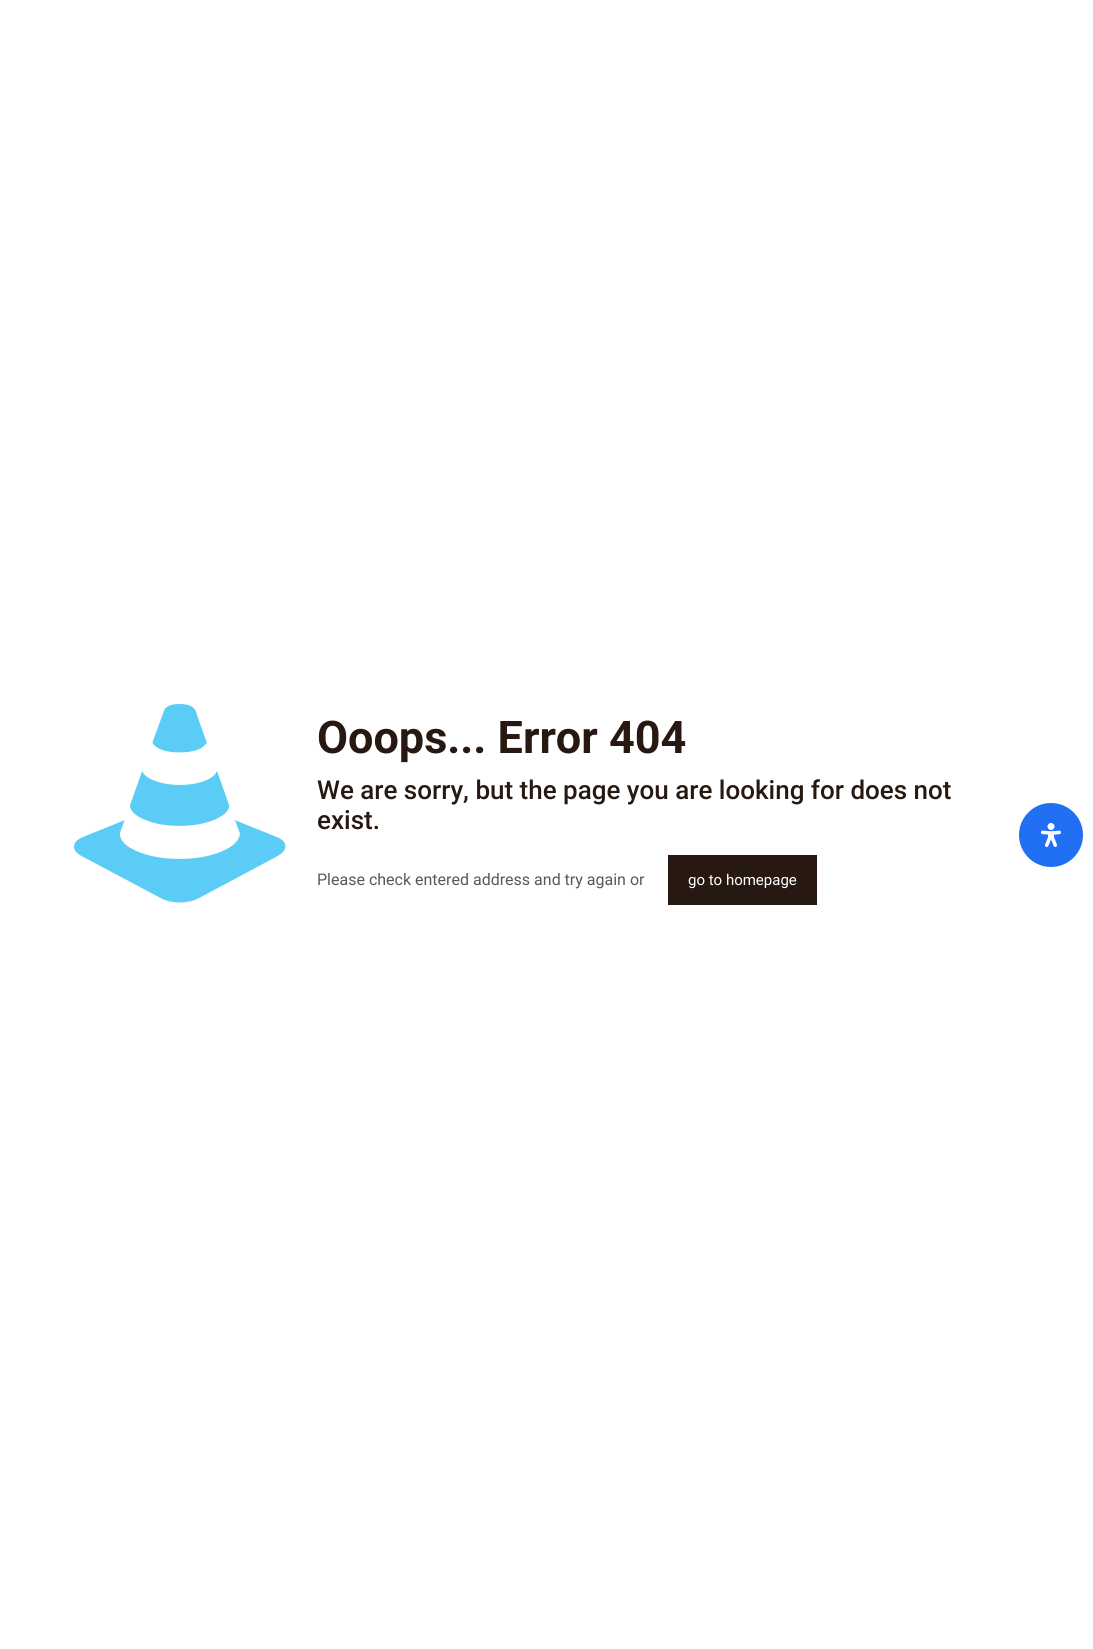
#include <cairo.h>
#include <math.h>
#include <stddef.h>


static void set_color(cairo_t *cr, unsigned color) {
    cairo_set_source_rgb(cr, (color >> 16) / 255.0, (color >> 8 & 255) / 255.0, (color & 255) / 255.0);
}

static void draw_text(cairo_t *cr, double x, double y, const char *s, const char *family, double size, int italic, int bold, unsigned color) {
    cairo_select_font_face(cr, family, italic ? CAIRO_FONT_SLANT_ITALIC : CAIRO_FONT_SLANT_NORMAL,
        bold ? CAIRO_FONT_WEIGHT_BOLD : CAIRO_FONT_WEIGHT_NORMAL);
    cairo_set_font_size(cr, size);
    set_color(cr, color);
    cairo_move_to(cr, x, y);
    cairo_show_text(cr, s);
}

static void fill_rect(cairo_t *cr, double x, double y, double w, double h, unsigned color) {
    set_color(cr, color);
    cairo_rectangle(cr, x, y, w, h);
    cairo_fill(cr);
}

static void draw_image(cairo_t *cr, const char *path, double x, double y, double w, double h) {
    cairo_surface_t *image = cairo_image_surface_create_from_png(path);
    cairo_save(cr);
    cairo_set_source_surface(cr, image, x, y);
    cairo_rectangle(cr, x, y, w, h);
    cairo_fill(cr);
    cairo_restore(cr);
    cairo_surface_destroy(image);
}

int main(void) {
    cairo_surface_t *surface = cairo_image_surface_create(CAIRO_FORMAT_RGB24, 1093, 1649);
    cairo_t *cr = cairo_create(surface);
    cairo_font_options_t *options = cairo_font_options_create();
    cairo_font_options_set_hint_metrics(options, CAIRO_HINT_METRICS_OFF);
    cairo_font_options_set_hint_style(options, CAIRO_HINT_STYLE_NONE);
    cairo_set_font_options(cr, options);
    cairo_set_miter_limit(cr, 4);
    set_color(cr, 0xFFFFFF);
    cairo_paint(cr);
    draw_image(cr, "assets/img1.png", 74, 704, 212, 199);
    draw_text(cr, 317, 753, "Ooops... Error 404", "Roboto", 45, 0, 1, 0x271912);
    draw_text(cr, 317, 799, "We are sorry, but the page you are looking for does not", "Roboto Medium", 26, 0, 0, 0x271912);
    draw_text(cr, 317, 829, "exist.", "Roboto Medium", 26, 0, 0, 0x271912);
    draw_text(cr, 317, 885, "Please check entered address and try again or", "Roboto", 16, 0, 0, 0x545A5C);
    fill_rect(cr, 668, 855, 149, 50, 0x271912);
    draw_text(cr, 688, 885, "go to homepage", "Roboto", 15, 0, 0, 0xFFFFFF);
    set_color(cr, 0x216FF3);
    cairo_new_path(cr);
    cairo_arc(cr, 1051, 835, 32, 0, 2 * M_PI);
    cairo_fill(cr);
    draw_image(cr, "assets/img2.png", 1041, 823, 20, 24);
    cairo_surface_write_to_png(surface, "output.png");
    cairo_font_options_destroy(options);
    cairo_destroy(cr);
    cairo_surface_destroy(surface);
    return 0;
}
